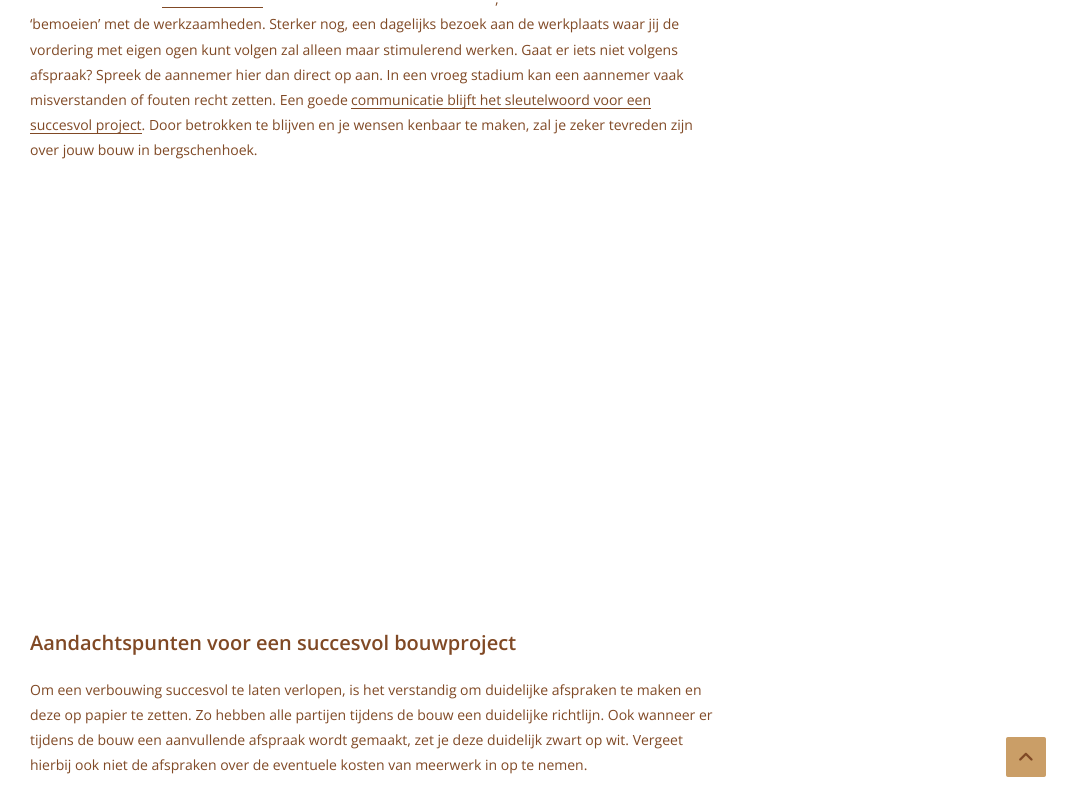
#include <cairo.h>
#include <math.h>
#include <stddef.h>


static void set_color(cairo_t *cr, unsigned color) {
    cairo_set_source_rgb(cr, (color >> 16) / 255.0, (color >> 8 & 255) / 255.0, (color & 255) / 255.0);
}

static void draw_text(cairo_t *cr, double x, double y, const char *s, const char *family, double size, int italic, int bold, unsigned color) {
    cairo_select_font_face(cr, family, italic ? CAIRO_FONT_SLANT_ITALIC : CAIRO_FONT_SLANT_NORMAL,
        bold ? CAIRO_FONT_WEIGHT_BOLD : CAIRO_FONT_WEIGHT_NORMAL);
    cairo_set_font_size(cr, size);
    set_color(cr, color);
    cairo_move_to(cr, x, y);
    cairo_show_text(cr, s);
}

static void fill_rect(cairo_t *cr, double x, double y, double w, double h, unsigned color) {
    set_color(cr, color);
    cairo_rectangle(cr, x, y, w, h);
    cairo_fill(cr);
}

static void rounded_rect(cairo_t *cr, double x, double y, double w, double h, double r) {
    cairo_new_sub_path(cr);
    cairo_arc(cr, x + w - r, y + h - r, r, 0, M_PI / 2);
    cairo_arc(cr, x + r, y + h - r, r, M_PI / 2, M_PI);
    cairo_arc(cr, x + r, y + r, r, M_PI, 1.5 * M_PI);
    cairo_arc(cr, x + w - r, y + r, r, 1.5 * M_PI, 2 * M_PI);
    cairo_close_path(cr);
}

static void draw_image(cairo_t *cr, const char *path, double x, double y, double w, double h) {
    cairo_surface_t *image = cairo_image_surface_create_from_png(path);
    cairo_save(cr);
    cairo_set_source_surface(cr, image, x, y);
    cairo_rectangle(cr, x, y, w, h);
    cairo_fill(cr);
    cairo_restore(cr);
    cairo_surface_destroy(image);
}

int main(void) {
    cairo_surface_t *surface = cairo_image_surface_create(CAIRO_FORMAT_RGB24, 1066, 797);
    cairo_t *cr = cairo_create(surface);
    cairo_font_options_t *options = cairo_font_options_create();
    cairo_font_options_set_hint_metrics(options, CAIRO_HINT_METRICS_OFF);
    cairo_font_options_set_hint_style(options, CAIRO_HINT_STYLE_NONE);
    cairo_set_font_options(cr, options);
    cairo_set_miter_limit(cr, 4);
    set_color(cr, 0xFFFFFF);
    cairo_paint(cr);
    draw_text(cr, 495, 4, ",", "Open Sans", 14, 0, 0, 0x804925);
    fill_rect(cr, 162, 7, 101, 1, 0x804925);
    draw_text(cr, 30, 29, "‘bemoeien’ met de werkzaamheden. Sterker nog, een dagelijks bezoek aan de werkplaats waar jij de", "Open Sans", 14, 0, 0, 0x804925);
    draw_text(cr, 30, 55, "vordering met eigen ogen kunt volgen zal alleen maar stimulerend werken. Gaat er iets niet volgens", "Open Sans", 14, 0, 0, 0x804925);
    draw_text(cr, 30, 80, "afspraak? Spreek de aannemer hier dan direct op aan. In een vroeg stadium kan een aannemer vaak", "Open Sans", 14, 0, 0, 0x804925);
    draw_text(cr, 30, 105, "misverstanden of fouten recht zetten. Een goede", "Open Sans", 14, 0, 0, 0x804925);
    fill_rect(cr, 351, 108, 300, 1, 0x804925);
    draw_text(cr, 351, 105, "communicatie blijft het sleutelwoord voor een", "Open Sans", 14, 0, 0, 0x804925);
    fill_rect(cr, 30, 133, 112, 1, 0x804925);
    draw_text(cr, 30, 130, "succesvol project. Door betrokken te blijven en je wensen kenbaar te maken, zal je zeker tevreden zijn", "Open Sans", 14, 0, 0, 0x804925);
    draw_text(cr, 30, 155, "over jouw bouw in bergschenhoek.", "Open Sans", 14, 0, 0, 0x804925);
    draw_text(cr, 30, 650, "Aandachtspunten voor een succesvol bouwproject", "Open Sans SemiBold", 20, 0, 0, 0x804925);
    draw_text(cr, 30, 695, "Om een verbouwing succesvol te laten verlopen, is het verstandig om duidelijke afspraken te maken en", "Open Sans", 14, 0, 0, 0x804925);
    draw_text(cr, 30, 720, "deze op papier te zetten. Zo hebben alle partijen tijdens de bouw een duidelijke richtlijn. Ook wanneer er", "Open Sans", 14, 0, 0, 0x804925);
    draw_text(cr, 30, 745, "tijdens de bouw een aanvullende afspraak wordt gemaakt, zet je deze duidelijk zwart op wit. Vergeet", "Open Sans", 14, 0, 0, 0x804925);
    draw_text(cr, 30, 770, "hierbij ook niet de afspraken over de eventuele kosten van meerwerk in op te nemen.", "Open Sans", 14, 0, 0, 0x804925);
    set_color(cr, 0xCA9E67);
    rounded_rect(cr, 1006, 737, 40, 40, 2);
    cairo_fill(cr);
    draw_image(cr, "assets/img1.png", 1019, 752, 14, 9);
    cairo_surface_write_to_png(surface, "output.png");
    cairo_font_options_destroy(options);
    cairo_destroy(cr);
    cairo_surface_destroy(surface);
    return 0;
}
